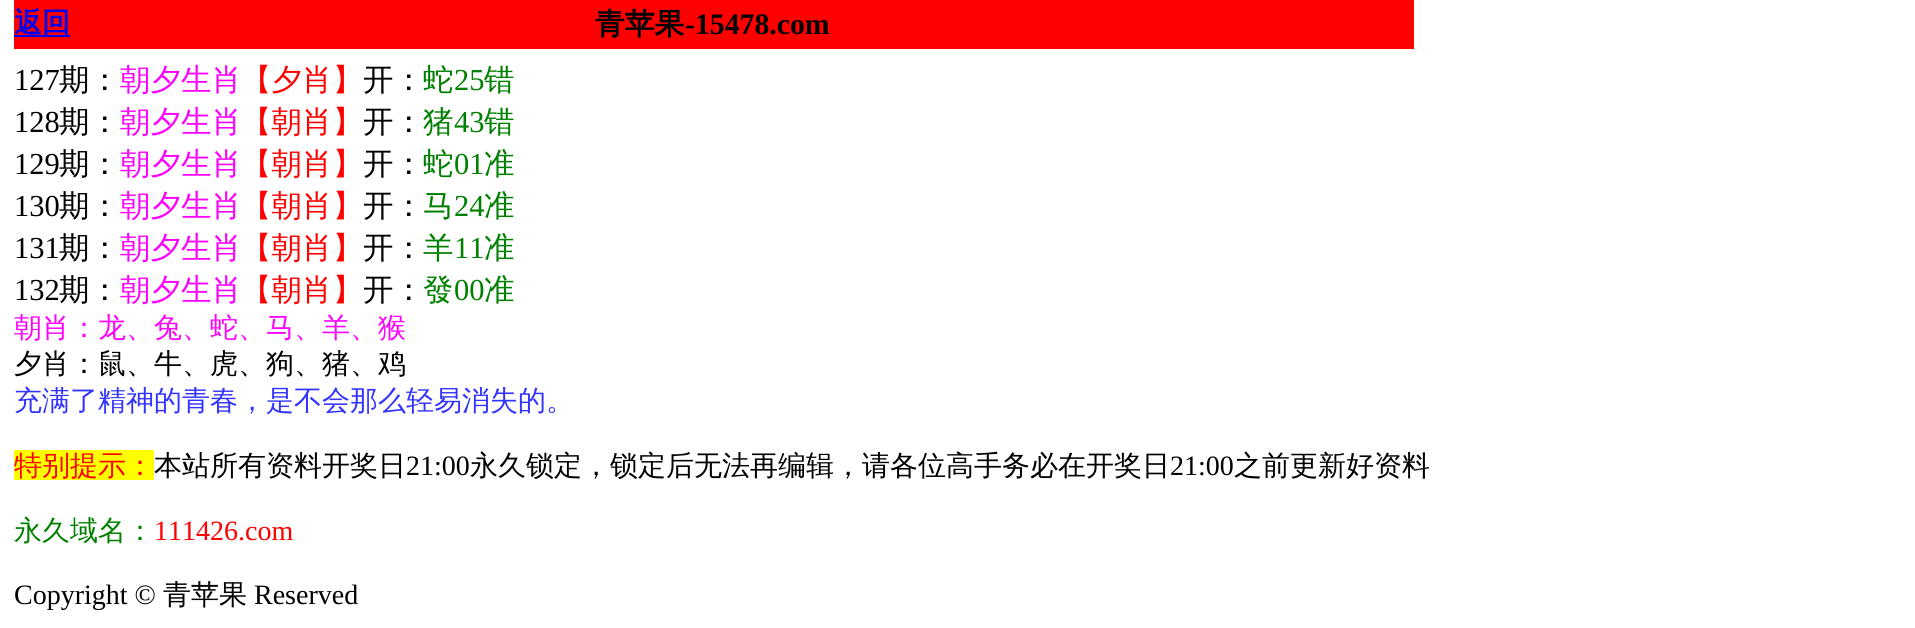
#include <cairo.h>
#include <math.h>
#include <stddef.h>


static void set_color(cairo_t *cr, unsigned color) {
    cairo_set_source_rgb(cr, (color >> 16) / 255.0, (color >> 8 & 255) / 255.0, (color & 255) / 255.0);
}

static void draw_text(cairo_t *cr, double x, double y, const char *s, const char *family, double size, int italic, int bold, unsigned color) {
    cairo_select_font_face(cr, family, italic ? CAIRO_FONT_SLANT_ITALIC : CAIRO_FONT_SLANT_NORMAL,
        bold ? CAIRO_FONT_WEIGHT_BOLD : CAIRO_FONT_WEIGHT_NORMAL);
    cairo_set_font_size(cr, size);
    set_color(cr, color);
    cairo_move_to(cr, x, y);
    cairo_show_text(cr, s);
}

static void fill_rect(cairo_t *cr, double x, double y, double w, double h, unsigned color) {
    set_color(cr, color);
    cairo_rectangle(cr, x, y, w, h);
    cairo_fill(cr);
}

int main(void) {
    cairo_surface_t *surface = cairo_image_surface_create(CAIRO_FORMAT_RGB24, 1915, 628);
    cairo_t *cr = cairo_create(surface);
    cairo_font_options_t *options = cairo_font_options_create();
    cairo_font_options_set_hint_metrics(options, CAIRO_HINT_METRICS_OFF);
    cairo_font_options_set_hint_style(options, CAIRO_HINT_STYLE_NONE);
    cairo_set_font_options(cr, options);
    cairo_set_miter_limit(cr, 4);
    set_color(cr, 0xFFFFFF);
    cairo_paint(cr);
    fill_rect(cr, 14, 0, 1400, 49, 0xFF0000);
    fill_rect(cr, 14, 35, 56, 2, 0x0000EE);
    draw_text(cr, 14, 32, "返回", "WenQuanYi Zen Hei", 28, 0, 1, 0x0000EE);
    draw_text(cr, 595, 34, "青苹果", "WenQuanYi Zen Hei", 29.75, 0, 1, 0x000000);
    draw_text(cr, 685, 34, "-15478.com", "Liberation Serif", 29.75, 0, 1, 0x000000);
    draw_text(cr, 14, 90, "127", "Liberation Serif", 30.5, 0, 0, 0x000000);
    draw_text(cr, 59, 90, "期：", "WenQuanYi Zen Hei Medium", 30.5, 0, 0, 0x000000);
    draw_text(cr, 120, 90, "朝夕生肖", "WenQuanYi Zen Hei Medium", 30.5, 0, 0, 0xFF00FF);
    draw_text(cr, 241, 90, "【夕肖】", "WenQuanYi Zen Hei Medium", 30.5, 0, 0, 0xFF0000);
    draw_text(cr, 363, 90, "开：", "WenQuanYi Zen Hei Medium", 30.5, 0, 0, 0x000000);
    draw_text(cr, 423, 90, "蛇", "WenQuanYi Zen Hei Medium", 30.5, 0, 0, 0x008000);
    draw_text(cr, 454, 90, "25", "Liberation Serif", 30.5, 0, 0, 0x008000);
    draw_text(cr, 484, 90, "错", "WenQuanYi Zen Hei Medium", 30.5, 0, 0, 0x008000);
    draw_text(cr, 14, 132, "128", "Liberation Serif", 30.5, 0, 0, 0x000000);
    draw_text(cr, 59, 132, "期：", "WenQuanYi Zen Hei Medium", 30.5, 0, 0, 0x000000);
    draw_text(cr, 120, 132, "朝夕生肖", "WenQuanYi Zen Hei Medium", 30.5, 0, 0, 0xFF00FF);
    draw_text(cr, 241, 132, "【朝肖】", "WenQuanYi Zen Hei Medium", 30.5, 0, 0, 0xFF0000);
    draw_text(cr, 363, 132, "开：", "WenQuanYi Zen Hei Medium", 30.5, 0, 0, 0x000000);
    draw_text(cr, 423, 132, "猪", "WenQuanYi Zen Hei Medium", 30.5, 0, 0, 0x008000);
    draw_text(cr, 454, 132, "43", "Liberation Serif", 30.5, 0, 0, 0x008000);
    draw_text(cr, 484, 132, "错", "WenQuanYi Zen Hei Medium", 30.5, 0, 0, 0x008000);
    draw_text(cr, 14, 174, "129", "Liberation Serif", 30.5, 0, 0, 0x000000);
    draw_text(cr, 59, 174, "期：", "WenQuanYi Zen Hei Medium", 30.5, 0, 0, 0x000000);
    draw_text(cr, 120, 174, "朝夕生肖", "WenQuanYi Zen Hei Medium", 30.5, 0, 0, 0xFF00FF);
    draw_text(cr, 241, 174, "【朝肖】", "WenQuanYi Zen Hei Medium", 30.5, 0, 0, 0xFF0000);
    draw_text(cr, 363, 174, "开：", "WenQuanYi Zen Hei Medium", 30.5, 0, 0, 0x000000);
    draw_text(cr, 423, 174, "蛇", "WenQuanYi Zen Hei Medium", 30.5, 0, 0, 0x008000);
    draw_text(cr, 454, 174, "01", "Liberation Serif", 30.5, 0, 0, 0x008000);
    draw_text(cr, 484, 174, "准", "WenQuanYi Zen Hei Medium", 30.5, 0, 0, 0x008000);
    draw_text(cr, 14, 216, "130", "Liberation Serif", 30.5, 0, 0, 0x000000);
    draw_text(cr, 59, 216, "期：", "WenQuanYi Zen Hei Medium", 30.5, 0, 0, 0x000000);
    draw_text(cr, 120, 216, "朝夕生肖", "WenQuanYi Zen Hei Medium", 30.5, 0, 0, 0xFF00FF);
    draw_text(cr, 241, 216, "【朝肖】", "WenQuanYi Zen Hei Medium", 30.5, 0, 0, 0xFF0000);
    draw_text(cr, 363, 216, "开：", "WenQuanYi Zen Hei Medium", 30.5, 0, 0, 0x000000);
    draw_text(cr, 423, 216, "马", "WenQuanYi Zen Hei Medium", 30.5, 0, 0, 0x008000);
    draw_text(cr, 454, 216, "24", "Liberation Serif", 30.5, 0, 0, 0x008000);
    draw_text(cr, 484, 216, "准", "WenQuanYi Zen Hei Medium", 30.5, 0, 0, 0x008000);
    draw_text(cr, 14, 258, "131", "Liberation Serif", 30.5, 0, 0, 0x000000);
    draw_text(cr, 59, 258, "期：", "WenQuanYi Zen Hei Medium", 30.5, 0, 0, 0x000000);
    draw_text(cr, 120, 258, "朝夕生肖", "WenQuanYi Zen Hei Medium", 30.5, 0, 0, 0xFF00FF);
    draw_text(cr, 241, 258, "【朝肖】", "WenQuanYi Zen Hei Medium", 30.5, 0, 0, 0xFF0000);
    draw_text(cr, 363, 258, "开：", "WenQuanYi Zen Hei Medium", 30.5, 0, 0, 0x000000);
    draw_text(cr, 423, 258, "羊", "WenQuanYi Zen Hei Medium", 30.5, 0, 0, 0x008000);
    draw_text(cr, 454, 258, "11", "Liberation Serif", 30.5, 0, 0, 0x008000);
    draw_text(cr, 484, 258, "准", "WenQuanYi Zen Hei Medium", 30.5, 0, 0, 0x008000);
    draw_text(cr, 14, 300, "132", "Liberation Serif", 30.5, 0, 0, 0x000000);
    draw_text(cr, 59, 300, "期：", "WenQuanYi Zen Hei Medium", 30.5, 0, 0, 0x000000);
    draw_text(cr, 120, 300, "朝夕生肖", "WenQuanYi Zen Hei Medium", 30.5, 0, 0, 0xFF00FF);
    draw_text(cr, 241, 300, "【朝肖】", "WenQuanYi Zen Hei Medium", 30.5, 0, 0, 0xFF0000);
    draw_text(cr, 363, 300, "开：", "WenQuanYi Zen Hei Medium", 30.5, 0, 0, 0x000000);
    draw_text(cr, 423, 300, "發", "WenQuanYi Zen Hei Medium", 30.5, 0, 0, 0x008000);
    draw_text(cr, 454, 300, "00", "Liberation Serif", 30.5, 0, 0, 0x008000);
    draw_text(cr, 484, 300, "准", "WenQuanYi Zen Hei Medium", 30.5, 0, 0, 0x008000);
    draw_text(cr, 14, 337, "朝肖：龙、兔、蛇、马、羊、猴", "WenQuanYi Zen Hei Medium", 28, 0, 0, 0xFF00FF);
    draw_text(cr, 14, 373, "夕肖：鼠、牛、虎、狗、猪、鸡", "WenQuanYi Zen Hei Medium", 28, 0, 0, 0x000000);
    draw_text(cr, 14, 410, "充满了精神的青春，是不会那么轻易消失的。", "WenQuanYi Zen Hei Medium", 28, 0, 0, 0x3333FF);
    fill_rect(cr, 14, 450, 140, 30, 0xFFFF00);
    draw_text(cr, 14, 475, "特别提示：", "WenQuanYi Zen Hei Medium", 28, 0, 0, 0xFF0000);
    draw_text(cr, 154, 475, "本站所有资料开奖日", "WenQuanYi Zen Hei Medium", 28, 0, 0, 0x000000);
    draw_text(cr, 406, 475, "21:00", "Liberation Serif", 28, 0, 0, 0x000000);
    draw_text(cr, 470, 475, "永久锁定，锁定后无法再编辑，请各位高手务必在开奖日", "WenQuanYi Zen Hei Medium", 28, 0, 0, 0x000000);
    draw_text(cr, 1170, 475, "21:00", "Liberation Serif", 28, 0, 0, 0x000000);
    draw_text(cr, 1234, 475, "之前更新好资料", "WenQuanYi Zen Hei Medium", 28, 0, 0, 0x000000);
    draw_text(cr, 14, 540, "永久域名：", "WenQuanYi Zen Hei Medium", 28, 0, 0, 0x008000);
    draw_text(cr, 154, 540, "111426.com", "Liberation Serif", 28, 0, 0, 0xFF0000);
    draw_text(cr, 14, 604, "Copyright ©", "Liberation Serif", 28, 0, 0, 0x000000);
    draw_text(cr, 163, 604, "青苹果", "WenQuanYi Zen Hei Medium", 28, 0, 0, 0x000000);
    draw_text(cr, 254, 604, "Reserved", "Liberation Serif", 28, 0, 0, 0x000000);
    cairo_surface_write_to_png(surface, "output.png");
    cairo_font_options_destroy(options);
    cairo_destroy(cr);
    cairo_surface_destroy(surface);
    return 0;
}
